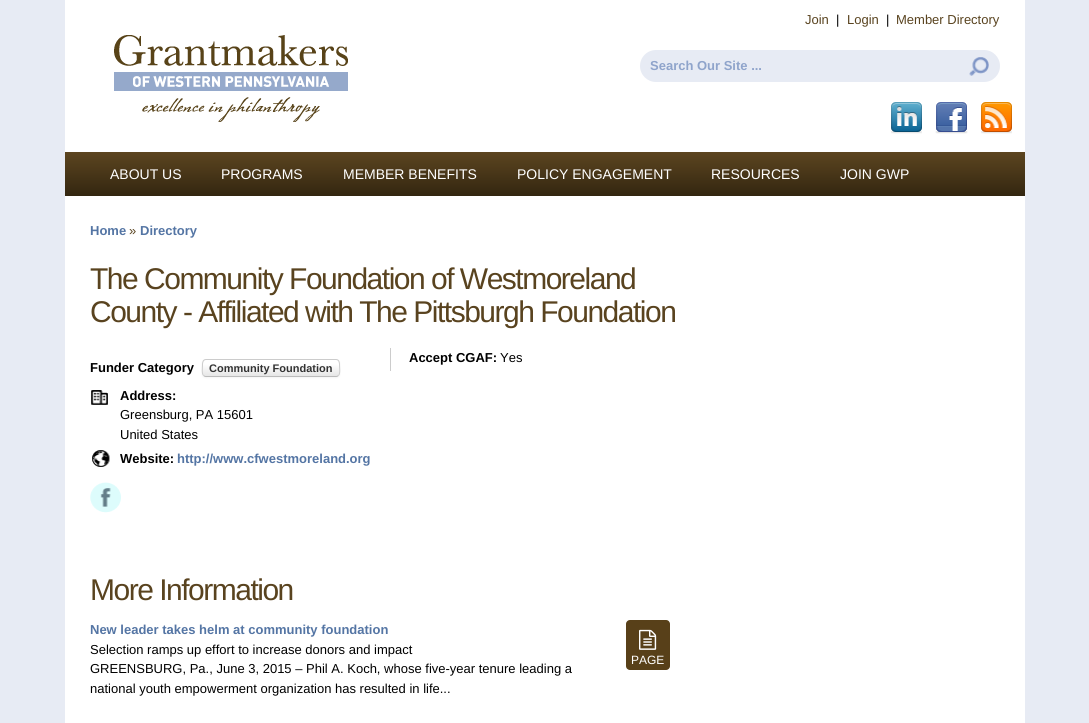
#include <cairo.h>
#include <math.h>
#include <stddef.h>


static void set_color(cairo_t *cr, unsigned color) {
    cairo_set_source_rgb(cr, (color >> 16) / 255.0, (color >> 8 & 255) / 255.0, (color & 255) / 255.0);
}

static void draw_text(cairo_t *cr, double x, double y, const char *s, const char *family, double size, int italic, int bold, unsigned color) {
    cairo_select_font_face(cr, family, italic ? CAIRO_FONT_SLANT_ITALIC : CAIRO_FONT_SLANT_NORMAL,
        bold ? CAIRO_FONT_WEIGHT_BOLD : CAIRO_FONT_WEIGHT_NORMAL);
    cairo_set_font_size(cr, size);
    set_color(cr, color);
    cairo_move_to(cr, x, y);
    cairo_show_text(cr, s);
}

static void draw_spaced(cairo_t *cr, double x, double y, const char *s, double letter, double word) {
    cairo_move_to(cr, x, y);
    while (*s) {
        char ch[5] = {0};
        int n = 0;
        do ch[n++] = *s++; while ((*s & 0xC0) == 0x80);
        cairo_show_text(cr, ch);
        cairo_rel_move_to(cr, letter + word * (*ch == ' '), 0);
    }
}

static void fill_rect(cairo_t *cr, double x, double y, double w, double h, unsigned color) {
    set_color(cr, color);
    cairo_rectangle(cr, x, y, w, h);
    cairo_fill(cr);
}

static void rounded_rect(cairo_t *cr, double x, double y, double w, double h, double r) {
    cairo_new_sub_path(cr);
    cairo_arc(cr, x + w - r, y + h - r, r, 0, M_PI / 2);
    cairo_arc(cr, x + r, y + h - r, r, M_PI / 2, M_PI);
    cairo_arc(cr, x + r, y + r, r, M_PI, 1.5 * M_PI);
    cairo_arc(cr, x + w - r, y + r, r, 1.5 * M_PI, 2 * M_PI);
    cairo_close_path(cr);
}

static void draw_shadow(cairo_t *cr, double x, double y, double w, double h, double r, double blur, double alpha) {
    cairo_push_group_with_content(cr, CAIRO_CONTENT_ALPHA);
    cairo_set_operator(cr, CAIRO_OPERATOR_SOURCE);
    for (int i = 15; i >= -15 && fmin(w, h) + blur * i / 3 > 0; i -= 2) {
        double e = blur * i / 6;
        cairo_set_source_rgba(cr, 0, 0, 0, alpha * erfc((i - 1) / 8.5) / 2);
        rounded_rect(cr, x - e, y - e, w + 2 * e, h + 2 * e, fmax(0, fmin(r + e + blur * .6, fmin(w, h) / 2 + e)));
        cairo_fill(cr);
    }
    cairo_pattern_t *soft = cairo_pop_group(cr);
    cairo_mask(cr, soft);
    cairo_pattern_destroy(soft);
}

static void draw_image(cairo_t *cr, const char *path, double x, double y, double w, double h) {
    cairo_surface_t *image = cairo_image_surface_create_from_png(path);
    cairo_save(cr);
    cairo_set_source_surface(cr, image, x, y);
    cairo_rectangle(cr, x, y, w, h);
    cairo_fill(cr);
    cairo_restore(cr);
    cairo_surface_destroy(image);
}

int main(void) {
    cairo_surface_t *surface = cairo_image_surface_create(CAIRO_FORMAT_RGB24, 1089, 723);
    cairo_t *cr = cairo_create(surface);
    cairo_font_options_t *options = cairo_font_options_create();
    cairo_font_options_set_hint_metrics(options, CAIRO_HINT_METRICS_OFF);
    cairo_font_options_set_hint_style(options, CAIRO_HINT_STYLE_NONE);
    cairo_set_font_options(cr, options);
    cairo_set_miter_limit(cr, 4);
    cairo_pattern_t *gradient;
    set_color(cr, 0xE7EBF4);
    cairo_paint(cr);
    fill_rect(cr, 65, 0, 960, 152, 0xFFFFFF);
    draw_text(cr, 805, 24, "Join", "Liberation Sans", 13, 0, 0, 0x59431F);
    draw_text(cr, 836, 24, "|", "Liberation Sans", 13, 0, 0, 0x000000);
    draw_text(cr, 847, 24, "Login", "Liberation Sans", 13, 0, 0, 0x59431F);
    draw_text(cr, 886, 24, "|", "Liberation Sans", 13, 0, 0, 0x000000);
    draw_text(cr, 896, 24, "Member Directory", "Liberation Sans", 13, 0, 0, 0x59431F);
    draw_image(cr, "assets/img1.png", 114, 35, 234, 87);
    set_color(cr, 0xE7EBF4);
    rounded_rect(cr, 640, 50, 360, 32, 16);
    cairo_fill(cr);
    draw_text(cr, 650, 70, "Search Our Site ...", "Liberation Sans", 13, 0, 1, 0x8FA4CB);
    draw_image(cr, "assets/img2.png", 969, 57, 20, 19);
    draw_image(cr, "assets/img3.png", 891, 102, 31, 32);
    draw_image(cr, "assets/img4.png", 935, 102, 33, 32);
    draw_image(cr, "assets/img5.png", 981, 102, 31, 32);
    gradient = cairo_pattern_create_linear(65, 196, 65, 152);
    cairo_pattern_add_color_stop_rgba(gradient, 0, 0.2, 0.149, 0.063, 1);
    cairo_pattern_add_color_stop_rgba(gradient, 1, 0.361, 0.271, 0.125, 1);
    cairo_set_source(cr, gradient);
    cairo_pattern_destroy(gradient);
    cairo_rectangle(cr, 65, 152, 960, 44);
    cairo_fill(cr);
    draw_text(cr, 110, 179, "ABOUT US", "Liberation Sans", 14, 0, 0, 0xFFFFFF);
    draw_text(cr, 221, 179, "PROGRAMS", "Liberation Sans", 14, 0, 0, 0xFFFFFF);
    draw_text(cr, 343, 179, "MEMBER BENEFITS", "Liberation Sans", 14, 0, 0, 0xFFFFFF);
    draw_text(cr, 517, 179, "POLICY ENGAGEMENT", "Liberation Sans", 14, 0, 0, 0xFFFFFF);
    draw_text(cr, 711, 179, "RESOURCES", "Liberation Sans", 14, 0, 0, 0xFFFFFF);
    draw_text(cr, 840, 179, "JOIN GWP", "Liberation Sans", 14, 0, 0, 0xFFFFFF);
    fill_rect(cr, 65, 196, 960, 527, 0xFFFFFF);
    draw_text(cr, 90, 235, "Home", "Liberation Sans", 13, 0, 1, 0x5475A4);
    draw_text(cr, 129, 235, "»", "Liberation Sans", 13, 0, 0, 0x59431F);
    draw_text(cr, 140, 235, "Directory", "Liberation Sans", 13, 0, 1, 0x5475A4);
    cairo_select_font_face(cr, "Liberation Sans", CAIRO_FONT_SLANT_NORMAL, CAIRO_FONT_WEIGHT_NORMAL);
    cairo_set_font_size(cr, 30);
    set_color(cr, 0x59431F);
    draw_spaced(cr, 90, 289, "The Community Foundation of Westmoreland", -1.5, 0);
    draw_spaced(cr, 90, 322, "County - Affiliated with The Pittsburgh Foundation", -1.5, 0);
    fill_rect(cr, 390, 348, 1, 23, 0xCCCCCC);
    draw_text(cr, 409, 362, "Accept CGAF:", "Liberation Sans", 13, 0, 1, 0x000000);
    draw_text(cr, 500, 362, "Yes", "Liberation Sans", 13, 0, 0, 0x000000);
    draw_text(cr, 90, 372, "Funder Category", "Liberation Sans", 13, 0, 1, 0x000000);
    set_color(cr, 0x000000);
    draw_shadow(cr, 202, 360, 138, 18, 4, 1, 0.05);
    gradient = cairo_pattern_create_linear(271, 360, 271, 376);
    cairo_pattern_add_color_stop_rgba(gradient, 0, 1, 1, 1, 1);
    cairo_pattern_add_color_stop_rgba(gradient, 0.25, 1, 1, 1, 1);
    cairo_pattern_add_color_stop_rgba(gradient, 1, 0.902, 0.902, 0.902, 1);
    cairo_set_source(cr, gradient);
    cairo_pattern_destroy(gradient);
    rounded_rect(cr, 203, 360, 136, 16, 3);
    cairo_fill(cr);
    cairo_new_path(cr);
    cairo_move_to(cr, 338.5, 375.5);
    cairo_curve_to(cr, 338, 376, 337, 376.5, 336, 376.5);
    cairo_line_to(cr, 206, 376.5);
    cairo_curve_to(cr, 205, 376.5, 204, 376, 203.5, 375.5);
    set_color(cr, 0xBBBBBB);
    cairo_set_line_width(cr, 1);
    cairo_stroke(cr);
    cairo_new_path(cr);
    cairo_move_to(cr, 203.5, 375.5);
    cairo_curve_to(cr, 201.5, 373.5, 202.5, 367.5, 202.5, 364.5);
    cairo_curve_to(cr, 202.5, 362.5, 203, 359.5, 206, 359.5);
    cairo_line_to(cr, 336, 359.5);
    cairo_curve_to(cr, 339, 359.5, 339.5, 362.5, 339.5, 364.5);
    cairo_curve_to(cr, 339.5, 367.5, 340.5, 373.5, 338.5, 375.5);
    set_color(cr, 0xCCCCCC);
    cairo_stroke(cr);
    draw_text(cr, 209, 372, "Community Foundation", "Liberation Sans", 11, 0, 1, 0x333333);
    draw_image(cr, "assets/img6.png", 91, 390, 17, 15);
    draw_text(cr, 120, 400, "Address:", "Liberation Sans", 13, 0, 1, 0x000000);
    draw_text(cr, 120, 419, "Greensburg, PA 15601", "Liberation Sans", 13, 0, 0, 0x000000);
    draw_text(cr, 120, 439, "United States", "Liberation Sans", 13, 0, 0, 0x000000);
    draw_image(cr, "assets/img7.png", 92, 450, 18, 17);
    draw_text(cr, 120, 463, "Website:", "Liberation Sans", 13, 0, 1, 0x000000);
    draw_text(cr, 177, 463, "http://www.cfwestmoreland.org", "Liberation Sans", 13, 0, 1, 0x5475A4);
    draw_image(cr, "assets/img8.png", 90, 482, 31, 31);
    cairo_select_font_face(cr, "Liberation Sans", CAIRO_FONT_SLANT_NORMAL, CAIRO_FONT_WEIGHT_NORMAL);
    cairo_set_font_size(cr, 30);
    set_color(cr, 0x59431F);
    draw_spaced(cr, 90, 600, "More Information", -1.5, 0);
    draw_text(cr, 90, 634, "New leader takes helm at community foundation", "Liberation Sans", 13, 0, 1, 0x5475A4);
    draw_text(cr, 90, 654, "Selection ramps up effort to increase donors and impact", "Liberation Sans", 13, 0, 0, 0x000000);
    draw_text(cr, 90, 673, "GREENSBURG, Pa., June 3, 2015 – Phil A. Koch, whose five-year tenure leading a", "Liberation Sans", 13, 0, 0, 0x000000);
    draw_text(cr, 90, 693, "national youth empowerment organization has resulted in life...", "Liberation Sans", 13, 0, 0, 0x000000);
    set_color(cr, 0x584019);
    rounded_rect(cr, 626, 620, 44, 50, 4);
    cairo_fill(cr);
    draw_image(cr, "assets/img9.png", 639, 629, 18, 21);
    draw_text(cr, 631, 664, "PAGE", "Liberation Sans", 12, 0, 0, 0xFFFFFF);
    cairo_surface_write_to_png(surface, "output.png");
    cairo_font_options_destroy(options);
    cairo_destroy(cr);
    cairo_surface_destroy(surface);
    return 0;
}
